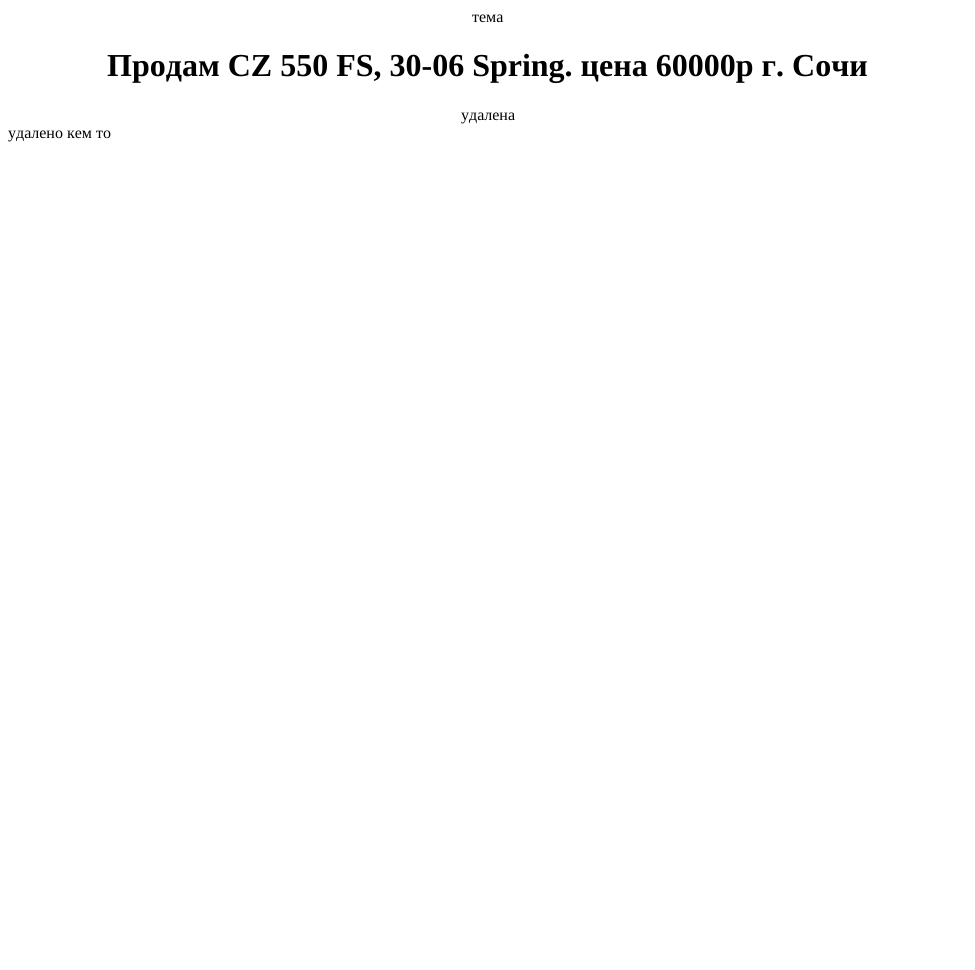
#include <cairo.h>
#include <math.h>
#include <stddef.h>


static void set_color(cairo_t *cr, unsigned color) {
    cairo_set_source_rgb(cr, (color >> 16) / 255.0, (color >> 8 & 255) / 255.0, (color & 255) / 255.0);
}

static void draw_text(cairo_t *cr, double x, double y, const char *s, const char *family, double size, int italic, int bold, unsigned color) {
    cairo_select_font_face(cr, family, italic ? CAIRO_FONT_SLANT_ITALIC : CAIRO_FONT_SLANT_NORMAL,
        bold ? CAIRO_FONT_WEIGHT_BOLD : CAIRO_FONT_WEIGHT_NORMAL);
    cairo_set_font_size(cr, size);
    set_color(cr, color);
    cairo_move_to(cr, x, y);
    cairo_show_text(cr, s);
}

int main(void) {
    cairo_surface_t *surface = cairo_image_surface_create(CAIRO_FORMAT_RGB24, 975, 970);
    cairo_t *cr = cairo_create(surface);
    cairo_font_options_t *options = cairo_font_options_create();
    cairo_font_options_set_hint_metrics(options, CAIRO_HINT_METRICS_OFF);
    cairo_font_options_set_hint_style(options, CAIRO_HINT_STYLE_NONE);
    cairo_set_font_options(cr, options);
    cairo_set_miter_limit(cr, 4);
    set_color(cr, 0xFFFFFF);
    cairo_paint(cr);
    draw_text(cr, 472, 22, "тема", "Liberation Serif", 16, 0, 0, 0x000000);
    draw_text(cr, 107, 76, "Продам CZ 550 FS, 30-06 Spring. цена 60000р г. Сочи", "Liberation Serif", 32, 0, 1, 0x000000);
    draw_text(cr, 461, 120, "удалена", "Liberation Serif", 16, 0, 0, 0x000000);
    draw_text(cr, 8, 138, "удалено кем то", "Liberation Serif", 16, 0, 0, 0x000000);
    cairo_surface_write_to_png(surface, "output.png");
    cairo_font_options_destroy(options);
    cairo_destroy(cr);
    cairo_surface_destroy(surface);
    return 0;
}
